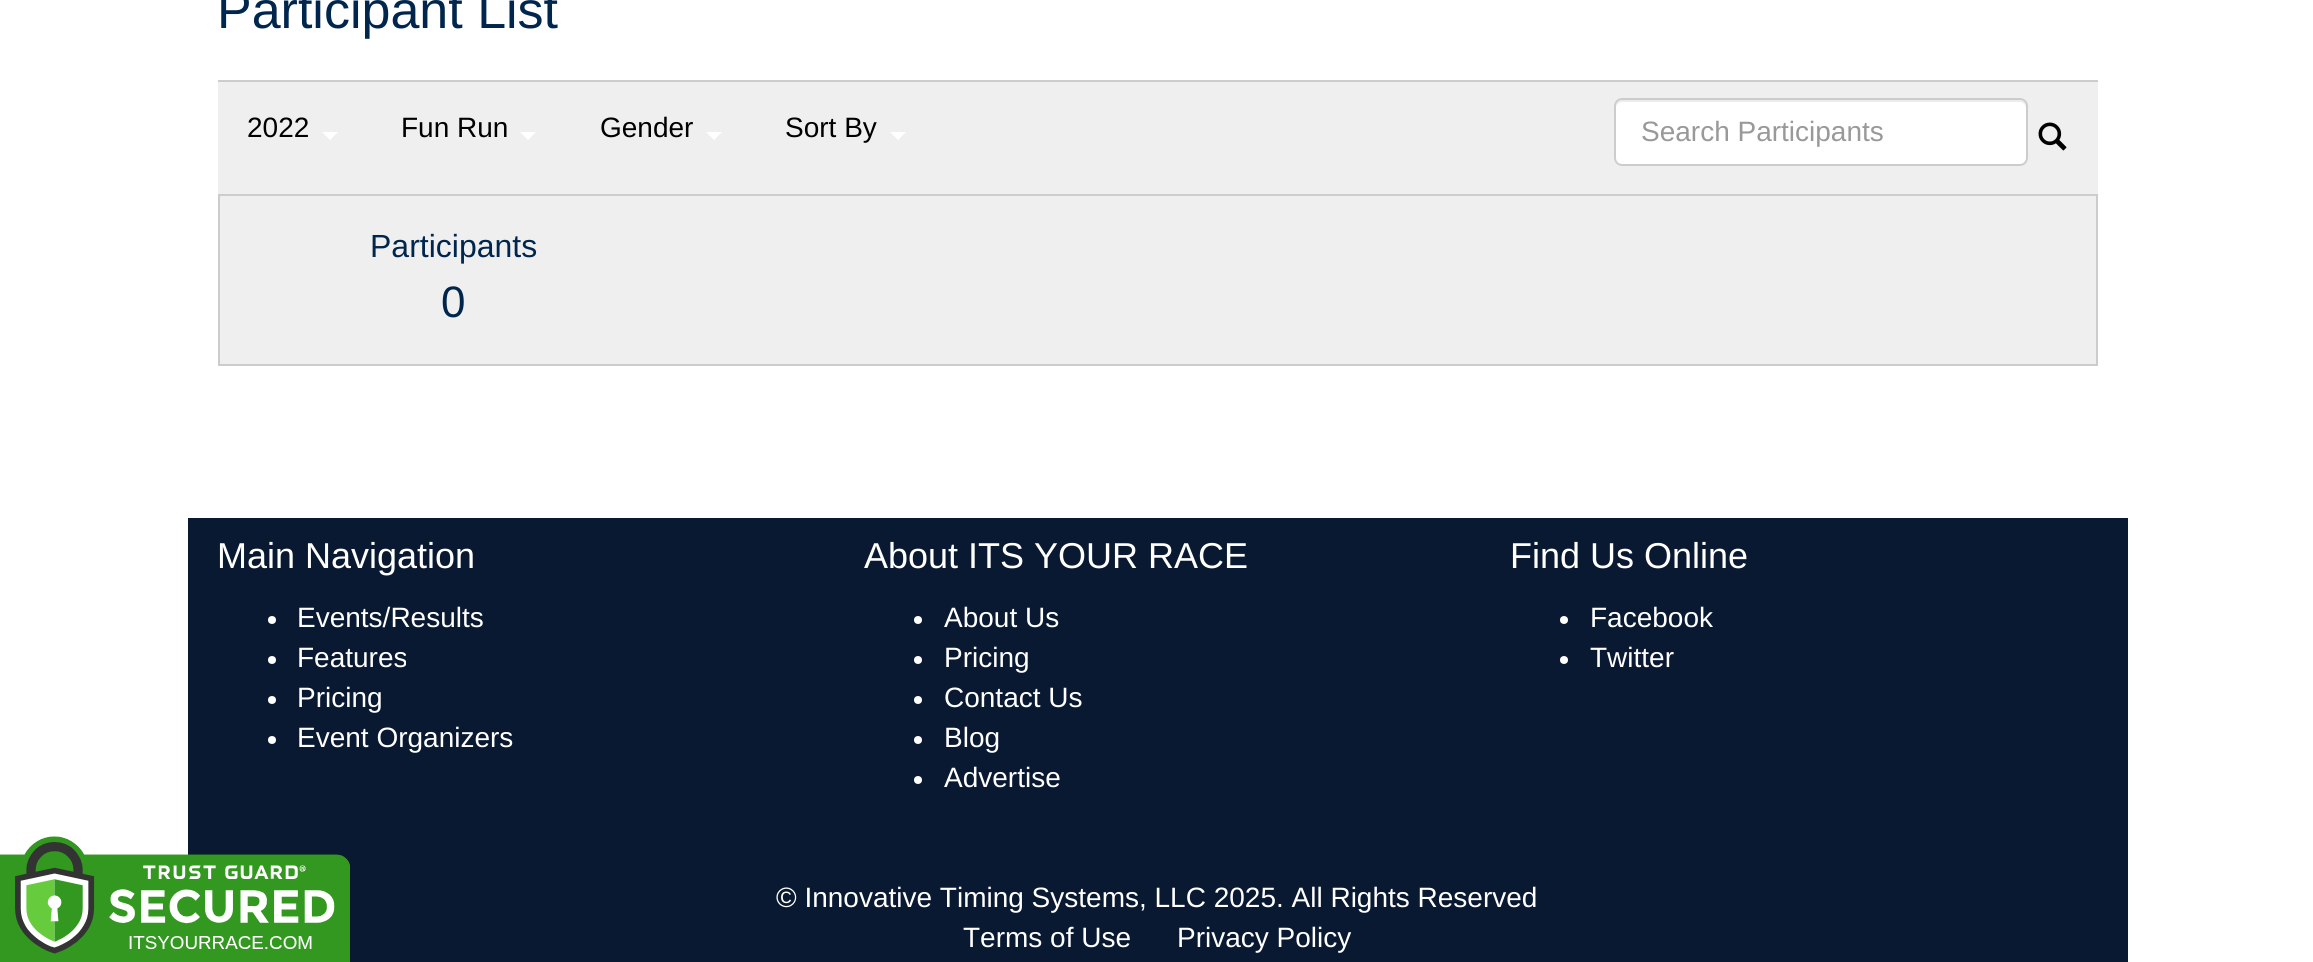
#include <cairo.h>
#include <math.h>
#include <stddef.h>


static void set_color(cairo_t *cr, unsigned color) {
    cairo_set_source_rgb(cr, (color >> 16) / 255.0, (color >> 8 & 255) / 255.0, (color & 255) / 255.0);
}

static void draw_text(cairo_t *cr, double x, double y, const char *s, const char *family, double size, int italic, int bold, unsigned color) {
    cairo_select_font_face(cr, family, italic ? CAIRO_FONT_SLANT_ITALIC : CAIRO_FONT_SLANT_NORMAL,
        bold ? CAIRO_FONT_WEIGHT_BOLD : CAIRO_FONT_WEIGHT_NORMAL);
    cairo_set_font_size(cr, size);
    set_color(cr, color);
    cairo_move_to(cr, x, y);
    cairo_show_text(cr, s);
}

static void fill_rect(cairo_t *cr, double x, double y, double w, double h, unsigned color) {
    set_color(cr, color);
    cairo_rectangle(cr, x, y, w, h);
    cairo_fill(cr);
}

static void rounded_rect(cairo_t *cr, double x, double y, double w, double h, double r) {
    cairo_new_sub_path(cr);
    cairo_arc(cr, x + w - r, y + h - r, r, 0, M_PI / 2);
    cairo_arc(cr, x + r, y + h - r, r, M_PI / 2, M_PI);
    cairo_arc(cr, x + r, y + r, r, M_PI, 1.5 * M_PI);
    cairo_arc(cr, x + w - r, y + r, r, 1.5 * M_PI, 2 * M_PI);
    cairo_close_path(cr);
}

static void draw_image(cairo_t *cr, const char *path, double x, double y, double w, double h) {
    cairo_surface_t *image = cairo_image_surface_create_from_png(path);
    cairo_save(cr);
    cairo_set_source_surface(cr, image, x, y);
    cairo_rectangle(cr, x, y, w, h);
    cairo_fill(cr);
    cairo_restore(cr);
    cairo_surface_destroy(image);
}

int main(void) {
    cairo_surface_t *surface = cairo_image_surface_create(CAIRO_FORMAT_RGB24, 2313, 962);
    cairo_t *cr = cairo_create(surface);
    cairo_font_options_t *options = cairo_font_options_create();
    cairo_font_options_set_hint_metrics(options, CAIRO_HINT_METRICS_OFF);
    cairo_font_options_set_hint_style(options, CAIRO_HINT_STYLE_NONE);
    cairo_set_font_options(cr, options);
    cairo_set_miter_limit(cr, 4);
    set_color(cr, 0xFFFFFF);
    cairo_paint(cr);
    fill_rect(cr, 188, 518, 1940, 444, 0x0A1932);
    draw_image(cr, "assets/img1.png", 0, 836, 350, 126);
    draw_text(cr, 217, 28, "Participant List", "Liberation Sans", 52, 0, 0, 0x00264D);
    fill_rect(cr, 218, 82, 1880, 112, 0xEFEFEF);
    fill_rect(cr, 218, 80, 1880, 2, 0xCCCCCC);
    draw_text(cr, 247, 137, "2022", "Liberation Sans", 28, 0, 0, 0x000000);
    set_color(cr, 0xFFFFFF);
    cairo_new_path(cr);
    cairo_move_to(cr, 322, 132);
    cairo_line_to(cr, 338, 132);
    cairo_line_to(cr, 330, 140);
    cairo_close_path(cr);
    cairo_fill(cr);
    draw_text(cr, 401, 137, "Fun Run", "Liberation Sans", 28, 0, 0, 0x000000);
    set_color(cr, 0xFFFFFF);
    cairo_new_path(cr);
    cairo_move_to(cr, 520, 132);
    cairo_line_to(cr, 536, 132);
    cairo_line_to(cr, 528, 140);
    cairo_close_path(cr);
    cairo_fill(cr);
    draw_text(cr, 600, 137, "Gender", "Liberation Sans", 28, 0, 0, 0x000000);
    set_color(cr, 0xFFFFFF);
    cairo_new_path(cr);
    cairo_move_to(cr, 706, 132);
    cairo_line_to(cr, 722, 132);
    cairo_line_to(cr, 714, 140);
    cairo_close_path(cr);
    cairo_fill(cr);
    draw_text(cr, 785, 137, "Sort By", "Liberation Sans", 28, 0, 0, 0x000000);
    set_color(cr, 0xFFFFFF);
    cairo_new_path(cr);
    cairo_move_to(cr, 890, 132);
    cairo_line_to(cr, 906, 132);
    cairo_line_to(cr, 898, 140);
    cairo_close_path(cr);
    cairo_fill(cr);
    rounded_rect(cr, 1614, 98, 414, 68, 8);
    cairo_fill(cr);
    set_color(cr, 0xECECEC);
    cairo_new_path(cr);
    cairo_move_to(cr, 1622, 102);
    cairo_line_to(cr, 2020, 102);
    cairo_curve_to(cr, 2023, 102, 2026, 105, 2026, 108);
    cairo_curve_to(cr, 2026, 104, 2025, 100, 2020, 100);
    cairo_line_to(cr, 1622, 100);
    cairo_curve_to(cr, 1617, 100, 1616, 104, 1616, 108);
    cairo_curve_to(cr, 1616, 105, 1619, 102, 1622, 102);
    cairo_close_path(cr);
    cairo_fill(cr);
    rounded_rect(cr, 1615, 99, 412, 66, 7);
    set_color(cr, 0xCCCCCC);
    cairo_stroke(cr);
    draw_text(cr, 1641, 141, "Search Participants", "Liberation Sans", 28, 0, 0, 0x999999);
    draw_image(cr, "assets/img2.png", 2038, 122, 29, 29);
    set_color(cr, 0xEFEFEF);
    cairo_rectangle(cr, 219, 195, 1878, 170);
    cairo_fill_preserve(cr);
    set_color(cr, 0xCCCCCC);
    cairo_stroke(cr);
    draw_text(cr, 370, 257, "Participants", "Liberation Sans", 32, 0, 0, 0x00264D);
    draw_text(cr, 441, 317, "0", "Liberation Sans", 44, 0, 0, 0x00264D);
    draw_text(cr, 217, 568, "Main Navigation", "Liberation Sans", 36, 0, 0, 0xFFFFFF);
    cairo_new_path(cr);
    cairo_arc(cr, 272, 620, 4, 0, 2 * M_PI);
    cairo_fill(cr);
    draw_text(cr, 297, 627, "Events/Results", "Liberation Sans", 28, 0, 0, 0xFFFFFF);
    cairo_new_path(cr);
    cairo_arc(cr, 272, 660, 4, 0, 2 * M_PI);
    cairo_fill(cr);
    draw_text(cr, 297, 667, "Features", "Liberation Sans", 28, 0, 0, 0xFFFFFF);
    cairo_new_path(cr);
    cairo_arc(cr, 272, 700, 4, 0, 2 * M_PI);
    cairo_fill(cr);
    draw_text(cr, 297, 707, "Pricing", "Liberation Sans", 28, 0, 0, 0xFFFFFF);
    cairo_new_path(cr);
    cairo_arc(cr, 272, 740, 4, 0, 2 * M_PI);
    cairo_fill(cr);
    draw_text(cr, 297, 747, "Event Organizers", "Liberation Sans", 28, 0, 0, 0xFFFFFF);
    draw_text(cr, 864, 568, "About ITS YOUR RACE", "Liberation Sans", 36, 0, 0, 0xFFFFFF);
    cairo_new_path(cr);
    cairo_arc(cr, 918, 620, 4, 0, 2 * M_PI);
    cairo_fill(cr);
    draw_text(cr, 944, 627, "About Us", "Liberation Sans", 28, 0, 0, 0xFFFFFF);
    cairo_new_path(cr);
    cairo_arc(cr, 918, 660, 4, 0, 2 * M_PI);
    cairo_fill(cr);
    draw_text(cr, 944, 667, "Pricing", "Liberation Sans", 28, 0, 0, 0xFFFFFF);
    cairo_new_path(cr);
    cairo_arc(cr, 918, 700, 4, 0, 2 * M_PI);
    cairo_fill(cr);
    draw_text(cr, 944, 707, "Contact Us", "Liberation Sans", 28, 0, 0, 0xFFFFFF);
    cairo_new_path(cr);
    cairo_arc(cr, 918, 740, 4, 0, 2 * M_PI);
    cairo_fill(cr);
    draw_text(cr, 944, 747, "Blog", "Liberation Sans", 28, 0, 0, 0xFFFFFF);
    cairo_new_path(cr);
    cairo_arc(cr, 918, 780, 4, 0, 2 * M_PI);
    cairo_fill(cr);
    draw_text(cr, 944, 787, "Advertise", "Liberation Sans", 28, 0, 0, 0xFFFFFF);
    draw_text(cr, 1510, 568, "Find Us Online", "Liberation Sans", 36, 0, 0, 0xFFFFFF);
    cairo_new_path(cr);
    cairo_arc(cr, 1564, 620, 4, 0, 2 * M_PI);
    cairo_fill(cr);
    draw_text(cr, 1590, 627, "Facebook", "Liberation Sans", 28, 0, 0, 0xFFFFFF);
    cairo_new_path(cr);
    cairo_arc(cr, 1564, 660, 4, 0, 2 * M_PI);
    cairo_fill(cr);
    draw_text(cr, 1590, 667, "Twitter", "Liberation Sans", 28, 0, 0, 0xFFFFFF);
    draw_text(cr, 776, 907, "© Innovative Timing Systems, LLC 2025. All Rights Reserved", "Liberation Sans", 28, 0, 0, 0xFFFFFF);
    draw_text(cr, 963, 947, "Terms of Use", "Liberation Sans", 28, 0, 0, 0xFFFFFF);
    draw_text(cr, 1177, 947, "Privacy Policy", "Liberation Sans", 28, 0, 0, 0xFFFFFF);
    cairo_surface_write_to_png(surface, "output.png");
    cairo_font_options_destroy(options);
    cairo_destroy(cr);
    cairo_surface_destroy(surface);
    return 0;
}
